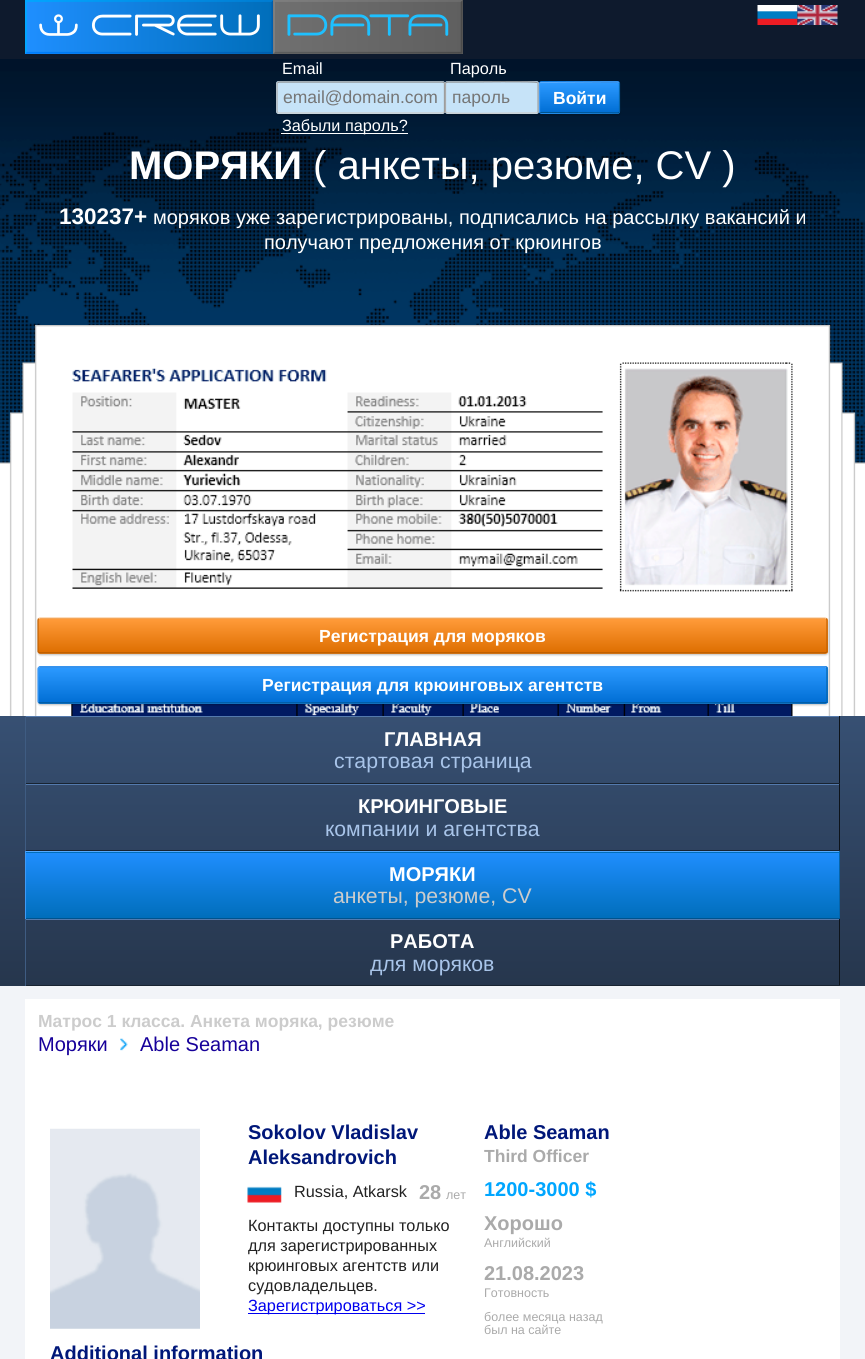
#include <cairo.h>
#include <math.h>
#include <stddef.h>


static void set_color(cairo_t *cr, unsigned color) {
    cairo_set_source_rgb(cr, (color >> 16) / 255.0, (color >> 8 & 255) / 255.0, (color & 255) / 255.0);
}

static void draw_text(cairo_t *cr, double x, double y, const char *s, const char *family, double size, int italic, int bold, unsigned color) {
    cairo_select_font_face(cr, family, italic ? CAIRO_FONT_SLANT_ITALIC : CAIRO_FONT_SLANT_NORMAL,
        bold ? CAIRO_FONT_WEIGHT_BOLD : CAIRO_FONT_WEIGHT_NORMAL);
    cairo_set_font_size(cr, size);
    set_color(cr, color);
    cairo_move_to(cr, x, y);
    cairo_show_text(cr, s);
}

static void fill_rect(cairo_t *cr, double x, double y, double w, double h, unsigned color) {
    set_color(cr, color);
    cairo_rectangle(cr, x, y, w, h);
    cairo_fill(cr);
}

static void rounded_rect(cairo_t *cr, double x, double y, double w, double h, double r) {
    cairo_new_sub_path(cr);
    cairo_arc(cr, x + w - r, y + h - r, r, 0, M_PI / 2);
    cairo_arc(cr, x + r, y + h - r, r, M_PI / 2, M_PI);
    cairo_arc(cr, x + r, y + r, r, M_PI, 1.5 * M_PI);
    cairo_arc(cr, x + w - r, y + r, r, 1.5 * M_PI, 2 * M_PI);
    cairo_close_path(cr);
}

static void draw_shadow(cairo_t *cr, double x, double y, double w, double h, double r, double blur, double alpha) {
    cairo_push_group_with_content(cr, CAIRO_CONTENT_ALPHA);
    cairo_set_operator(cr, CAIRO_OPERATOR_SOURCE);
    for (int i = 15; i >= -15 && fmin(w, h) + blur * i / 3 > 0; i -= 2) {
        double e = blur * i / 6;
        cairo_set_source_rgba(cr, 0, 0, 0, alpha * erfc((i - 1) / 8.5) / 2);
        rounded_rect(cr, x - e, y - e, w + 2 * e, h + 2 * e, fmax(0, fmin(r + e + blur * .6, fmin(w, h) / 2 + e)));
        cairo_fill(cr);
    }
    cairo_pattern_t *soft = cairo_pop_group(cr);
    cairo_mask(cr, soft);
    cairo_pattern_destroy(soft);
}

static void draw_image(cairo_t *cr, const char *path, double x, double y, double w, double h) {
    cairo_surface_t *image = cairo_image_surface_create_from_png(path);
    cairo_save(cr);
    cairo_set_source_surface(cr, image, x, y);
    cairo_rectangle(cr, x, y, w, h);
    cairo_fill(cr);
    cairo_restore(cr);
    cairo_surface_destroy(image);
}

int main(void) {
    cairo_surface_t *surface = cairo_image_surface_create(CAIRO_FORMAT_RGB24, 865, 1359);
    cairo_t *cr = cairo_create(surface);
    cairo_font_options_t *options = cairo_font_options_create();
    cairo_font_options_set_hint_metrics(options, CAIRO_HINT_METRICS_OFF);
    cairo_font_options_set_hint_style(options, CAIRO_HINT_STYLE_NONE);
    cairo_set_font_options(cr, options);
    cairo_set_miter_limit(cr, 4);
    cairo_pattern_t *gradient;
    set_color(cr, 0x0E1A2D);
    cairo_paint(cr);
    draw_image(cr, "assets/img1.png", 0, 59, 865, 69);
    draw_image(cr, "assets/img2.png", 0, 128, 865, 335);
    draw_image(cr, "assets/img3.png", 0, 325, 865, 391);
    draw_image(cr, "assets/img4.png", 25, 0, 438, 54);
    draw_image(cr, "assets/img5.png", 757, 5, 41, 20);
    draw_image(cr, "assets/img6.png", 797, 5, 41, 20);
    draw_text(cr, 282, 74, "Email", "Liberation Sans", 16.25, 0, 0, 0xFFFFFF);
    set_color(cr, 0x000000);
    draw_shadow(cr, 276, 83, 169, 32, 2.5, 1, 0.25);
    set_color(cr, 0xC6E3F8);
    rounded_rect(cr, 276, 81, 169, 33, 2.5);
    cairo_fill(cr);
    cairo_new_path(cr);
    cairo_move_to(cr, 277.5, 82.5);
    cairo_line_to(cr, 279, 82);
    cairo_line_to(cr, 442.5, 82);
    cairo_line_to(cr, 444, 82.5);
    set_color(cr, 0x888888);
    cairo_set_line_width(cr, 1.2);
    cairo_stroke(cr);
    cairo_new_path(cr);
    cairo_move_to(cr, 444, 82.5);
    cairo_line_to(cr, 444.5, 83.5);
    cairo_line_to(cr, 444.5, 111.5);
    cairo_line_to(cr, 444, 112.5);
    set_color(cr, 0xAAAAAA);
    cairo_stroke(cr);
    cairo_new_path(cr);
    cairo_move_to(cr, 444, 112.5);
    cairo_line_to(cr, 442.5, 113);
    cairo_line_to(cr, 279, 113);
    cairo_line_to(cr, 277.5, 112.5);
    set_color(cr, 0xCCCCCC);
    cairo_stroke(cr);
    cairo_new_path(cr);
    cairo_move_to(cr, 277.5, 112.5);
    cairo_line_to(cr, 277, 111.5);
    cairo_line_to(cr, 277, 83.5);
    cairo_line_to(cr, 277.5, 82.5);
    set_color(cr, 0xAAAAAA);
    cairo_stroke(cr);
    draw_text(cr, 283, 103, "email@domain.com", "Liberation Sans", 17.5, 0, 0, 0x757575);
    draw_text(cr, 450, 74, "Пароль", "Liberation Sans", 16.25, 0, 0, 0xFFFFFF);
    set_color(cr, 0x000000);
    draw_shadow(cr, 445, 83, 94, 32, 2.5, 1, 0.25);
    set_color(cr, 0xC6E3F8);
    rounded_rect(cr, 445, 81, 94, 33, 2.5);
    cairo_fill(cr);
    cairo_new_path(cr);
    cairo_move_to(cr, 446, 82.5);
    cairo_line_to(cr, 447.5, 82);
    cairo_line_to(cr, 462.5, 82);
    cairo_curve_to(cr, 470, 82, 536.5, 81, 537.5, 82.5);
    set_color(cr, 0x888888);
    cairo_stroke(cr);
    cairo_new_path(cr);
    cairo_move_to(cr, 537.5, 82.5);
    cairo_line_to(cr, 538, 83.5);
    cairo_line_to(cr, 538, 111.5);
    cairo_line_to(cr, 537.5, 112.5);
    set_color(cr, 0xAAAAAA);
    cairo_stroke(cr);
    cairo_new_path(cr);
    cairo_move_to(cr, 537.5, 112.5);
    cairo_line_to(cr, 536, 113);
    cairo_line_to(cr, 521.5, 113);
    cairo_curve_to(cr, 513.5, 113, 447.5, 114, 446, 112.5);
    set_color(cr, 0xCCCCCC);
    cairo_stroke(cr);
    cairo_new_path(cr);
    cairo_move_to(cr, 446, 112.5);
    cairo_line_to(cr, 445.5, 111.5);
    cairo_line_to(cr, 445.5, 83.5);
    cairo_line_to(cr, 446, 82.5);
    set_color(cr, 0xAAAAAA);
    cairo_stroke(cr);
    draw_text(cr, 452, 103, "пароль", "Liberation Sans", 17.5, 0, 0, 0x757575);
    set_color(cr, 0x000000);
    draw_shadow(cr, 539, 83, 81, 32, 2.5, 1, 0.25);
    cairo_save(cr);
    rounded_rect(cr, 539, 81, 81, 33, 2.5);
    cairo_clip(cr);
    gradient = cairo_pattern_create_linear(579, 53, 579, 83);
    cairo_pattern_add_color_stop_rgba(gradient, 0, 0.169, 0.6, 1, 1);
    cairo_pattern_add_color_stop_rgba(gradient, 1, 0, 0.431, 0.831, 1);
    cairo_set_source(cr, gradient);
    cairo_pattern_destroy(gradient);
    cairo_rectangle(cr, 539, 81, 81, 2);
    cairo_fill(cr);
    cairo_restore(cr);
    gradient = cairo_pattern_create_linear(579, 83, 579, 113);
    cairo_pattern_add_color_stop_rgba(gradient, 0, 0.169, 0.6, 1, 1);
    cairo_pattern_add_color_stop_rgba(gradient, 1, 0, 0.431, 0.831, 1);
    cairo_set_source(cr, gradient);
    cairo_pattern_destroy(gradient);
    cairo_rectangle(cr, 539, 83, 81, 30);
    cairo_fill(cr);
    cairo_save(cr);
    rounded_rect(cr, 539, 81, 81, 33, 2.5);
    cairo_clip(cr);
    gradient = cairo_pattern_create_linear(579, 113, 579, 143);
    cairo_pattern_add_color_stop_rgba(gradient, 0, 0.169, 0.6, 1, 1);
    cairo_pattern_add_color_stop_rgba(gradient, 1, 0, 0.431, 0.831, 1);
    cairo_set_source(cr, gradient);
    cairo_pattern_destroy(gradient);
    cairo_rectangle(cr, 539, 113, 81, 1);
    cairo_fill(cr);
    cairo_restore(cr);
    cairo_new_path(cr);
    cairo_move_to(cr, 540, 82.5);
    cairo_line_to(cr, 605, 82);
    cairo_line_to(cr, 617.5, 82);
    cairo_line_to(cr, 619, 82.5);
    set_color(cr, 0x56AAFE);
    cairo_stroke(cr);
    cairo_new_path(cr);
    cairo_move_to(cr, 619, 82.5);
    cairo_line_to(cr, 619.5, 83.5);
    cairo_line_to(cr, 619.5, 111.5);
    cairo_line_to(cr, 619, 112.5);
    set_color(cr, 0x0564AA);
    cairo_stroke(cr);
    cairo_new_path(cr);
    cairo_move_to(cr, 619, 112.5);
    cairo_line_to(cr, 617.5, 113);
    cairo_line_to(cr, 540, 112.5);
    set_color(cr, 0x00538E);
    cairo_stroke(cr);
    cairo_new_path(cr);
    cairo_move_to(cr, 540, 112.5);
    cairo_line_to(cr, 539.5, 111.5);
    cairo_line_to(cr, 539.5, 83.5);
    cairo_line_to(cr, 540, 82.5);
    set_color(cr, 0x3E9BF8);
    cairo_stroke(cr);
    draw_text(cr, 553, 104, "Войти", "Liberation Sans", 17.5, 0, 1, 0xFFFFFF);
    fill_rect(cr, 281, 133, 127, 1, 0xFFFFFF);
    draw_text(cr, 282, 131, "Забыли пароль?", "Liberation Sans", 16.25, 0, 0, 0xFFFFFF);
    draw_text(cr, 129, 179, "МОРЯКИ", "Liberation Sans", 40, 0, 1, 0xFFFFFF);
    draw_text(cr, 313, 179, "( анкеты, резюме, CV )", "Liberation Sans", 40, 0, 0, 0xFFFFFF);
    draw_text(cr, 59, 224, "130237+", "Liberation Sans", 22.5, 0, 1, 0xFFFFFF);
    draw_text(cr, 153, 224, "моряков уже зарегистрированы, подписались на рассылку вакансий и", "Liberation Sans", 20, 0, 0, 0xFFFFFF);
    draw_text(cr, 264, 249, "получают предложения от крюингов", "Liberation Sans", 20, 0, 0, 0xFFFFFF);
    set_color(cr, 0x000000);
    draw_shadow(cr, 38, 619, 790, 36, 2.5, 1, 0.25);
    cairo_save(cr);
    rounded_rect(cr, 38, 618, 790, 36, 2.5);
    cairo_clip(cr);
    gradient = cairo_pattern_create_linear(433, 585, 433, 619);
    cairo_pattern_add_color_stop_rgba(gradient, 0, 1, 0.608, 0.224, 1);
    cairo_pattern_add_color_stop_rgba(gradient, 1, 0.871, 0.431, 0, 1);
    cairo_set_source(cr, gradient);
    cairo_pattern_destroy(gradient);
    cairo_rectangle(cr, 38, 618, 790, 1);
    cairo_fill(cr);
    gradient = cairo_pattern_create_linear(433, 619, 433, 653);
    cairo_pattern_add_color_stop_rgba(gradient, 0, 1, 0.608, 0.224, 1);
    cairo_pattern_add_color_stop_rgba(gradient, 1, 0.871, 0.431, 0, 1);
    cairo_set_source(cr, gradient);
    cairo_pattern_destroy(gradient);
    cairo_rectangle(cr, 38, 619, 790, 34);
    cairo_fill(cr);
    gradient = cairo_pattern_create_linear(433, 653, 433, 686);
    cairo_pattern_add_color_stop_rgba(gradient, 0, 1, 0.608, 0.224, 1);
    cairo_pattern_add_color_stop_rgba(gradient, 1, 0.871, 0.431, 0, 1);
    cairo_set_source(cr, gradient);
    cairo_pattern_destroy(gradient);
    cairo_rectangle(cr, 38, 653, 790, 1);
    cairo_fill(cr);
    cairo_restore(cr);
    cairo_new_path(cr);
    cairo_move_to(cr, 38.5, 618.5);
    cairo_line_to(cr, 40, 618);
    cairo_line_to(cr, 825, 618);
    cairo_line_to(cr, 826.5, 618.5);
    set_color(cr, 0xFFC995);
    cairo_stroke(cr);
    cairo_new_path(cr);
    cairo_move_to(cr, 826.5, 618.5);
    cairo_line_to(cr, 827, 620);
    cairo_line_to(cr, 827, 651.5);
    cairo_line_to(cr, 826.5, 652.5);
    set_color(cr, 0xC26000);
    cairo_stroke(cr);
    cairo_new_path(cr);
    cairo_move_to(cr, 826.5, 652.5);
    cairo_line_to(cr, 825, 653);
    cairo_line_to(cr, 40, 653);
    cairo_line_to(cr, 38.5, 652.5);
    set_color(cr, 0xAD5600);
    cairo_stroke(cr);
    cairo_new_path(cr);
    cairo_move_to(cr, 38.5, 652.5);
    cairo_line_to(cr, 38, 651.5);
    cairo_line_to(cr, 38, 620);
    cairo_line_to(cr, 38.5, 618.5);
    set_color(cr, 0xC26000);
    cairo_stroke(cr);
    draw_text(cr, 319, 642, "Регистрация для моряков", "Liberation Sans", 17.5, 0, 1, 0xFFFFFF);
    set_color(cr, 0x000000);
    draw_shadow(cr, 38, 668, 790, 37, 2.5, 1, 0.25);
    cairo_save(cr);
    rounded_rect(cr, 38, 666, 790, 38, 2.5);
    cairo_clip(cr);
    gradient = cairo_pattern_create_linear(433, 632, 433, 668);
    cairo_pattern_add_color_stop_rgba(gradient, 0, 0.169, 0.6, 1, 1);
    cairo_pattern_add_color_stop_rgba(gradient, 1, 0, 0.431, 0.831, 1);
    cairo_set_source(cr, gradient);
    cairo_pattern_destroy(gradient);
    cairo_rectangle(cr, 38, 666, 790, 2);
    cairo_fill(cr);
    cairo_restore(cr);
    gradient = cairo_pattern_create_linear(433, 668, 433, 703);
    cairo_pattern_add_color_stop_rgba(gradient, 0, 0.169, 0.6, 1, 1);
    cairo_pattern_add_color_stop_rgba(gradient, 1, 0, 0.431, 0.831, 1);
    cairo_set_source(cr, gradient);
    cairo_pattern_destroy(gradient);
    cairo_rectangle(cr, 38, 668, 790, 35);
    cairo_fill(cr);
    cairo_save(cr);
    rounded_rect(cr, 38, 666, 790, 38, 2.5);
    cairo_clip(cr);
    gradient = cairo_pattern_create_linear(433, 703, 433, 738);
    cairo_pattern_add_color_stop_rgba(gradient, 0, 0.169, 0.6, 1, 1);
    cairo_pattern_add_color_stop_rgba(gradient, 1, 0, 0.431, 0.831, 1);
    cairo_set_source(cr, gradient);
    cairo_pattern_destroy(gradient);
    cairo_rectangle(cr, 38, 703, 790, 1);
    cairo_fill(cr);
    cairo_restore(cr);
    cairo_new_path(cr);
    cairo_move_to(cr, 38.5, 667.5);
    cairo_line_to(cr, 40, 667);
    cairo_line_to(cr, 825, 667);
    cairo_line_to(cr, 826.5, 667.5);
    set_color(cr, 0x56AAFE);
    cairo_stroke(cr);
    cairo_new_path(cr);
    cairo_move_to(cr, 826.5, 667.5);
    cairo_line_to(cr, 827, 668.5);
    cairo_line_to(cr, 827, 701.5);
    cairo_line_to(cr, 826.5, 702.5);
    set_color(cr, 0x0564AA);
    cairo_stroke(cr);
    cairo_new_path(cr);
    cairo_move_to(cr, 826.5, 702.5);
    cairo_line_to(cr, 825, 703);
    cairo_line_to(cr, 40, 703);
    cairo_line_to(cr, 38.5, 702.5);
    set_color(cr, 0x00538E);
    cairo_stroke(cr);
    cairo_new_path(cr);
    cairo_move_to(cr, 38.5, 702.5);
    cairo_line_to(cr, 38, 701.5);
    cairo_line_to(cr, 38, 668.5);
    cairo_line_to(cr, 38.5, 667.5);
    set_color(cr, 0x3E9BF8);
    cairo_stroke(cr);
    draw_text(cr, 262, 691, "Регистрация для крюинговых агентств", "Liberation Sans", 17.5, 0, 1, 0xFFFFFF);
    gradient = cairo_pattern_create_linear(433, 716, 433, 986);
    cairo_pattern_add_color_stop_rgba(gradient, 0, 0.216, 0.314, 0.451, 1);
    cairo_pattern_add_color_stop_rgba(gradient, 1, 0.149, 0.212, 0.302, 1);
    cairo_set_source(cr, gradient);
    cairo_pattern_destroy(gradient);
    cairo_rectangle(cr, 0, 716, 865, 270);
    cairo_fill(cr);
    fill_rect(cr, 25, 716, 815, 1, 0x547AAD);
    fill_rect(cr, 839, 716, 1, 68, 0x0D131A);
    fill_rect(cr, 25, 783, 815, 1, 0x182331);
    fill_rect(cr, 25, 716, 1, 68, 0x3F5C82);
    draw_text(cr, 384, 746, "ГЛАВНАЯ", "Liberation Sans", 20, 0, 1, 0xFFFFFF);
    draw_text(cr, 334, 768, "стартовая страница", "Liberation Sans", 21.25, 0, 0, 0xA8C4E9);
    fill_rect(cr, 25, 784, 815, 1, 0x547AAD);
    fill_rect(cr, 839, 784, 1, 67, 0x0D131A);
    fill_rect(cr, 25, 850, 815, 1, 0x182331);
    fill_rect(cr, 25, 784, 1, 67, 0x3F5C82);
    draw_text(cr, 358, 813, "КРЮИНГОВЫЕ", "Liberation Sans", 20, 0, 1, 0xFFFFFF);
    draw_text(cr, 325, 836, "компании и агентства", "Liberation Sans", 21.25, 0, 0, 0xA8C4E9);
    gradient = cairo_pattern_create_linear(433, 788, 433, 853);
    cairo_pattern_add_color_stop_rgba(gradient, 0, 0.122, 0.557, 0.996, 1);
    cairo_pattern_add_color_stop_rgba(gradient, 1, 0, 0.431, 0.733, 1);
    cairo_set_source(cr, gradient);
    cairo_pattern_destroy(gradient);
    cairo_rectangle(cr, 25, 852, 815, 1);
    cairo_fill(cr);
    gradient = cairo_pattern_create_linear(433, 853, 433, 918);
    cairo_pattern_add_color_stop_rgba(gradient, 0, 0.122, 0.557, 0.996, 1);
    cairo_pattern_add_color_stop_rgba(gradient, 1, 0, 0.431, 0.733, 1);
    cairo_set_source(cr, gradient);
    cairo_pattern_destroy(gradient);
    cairo_rectangle(cr, 26, 853, 813, 65);
    cairo_fill(cr);
    fill_rect(cr, 25, 851, 815, 1, 0x56AAFE);
    fill_rect(cr, 839, 851, 1, 68, 0x0564AA);
    fill_rect(cr, 25, 918, 815, 1, 0x00538E);
    fill_rect(cr, 25, 851, 1, 68, 0x3E9BF8);
    draw_text(cr, 389, 881, "МОРЯКИ", "Liberation Sans", 20, 0, 1, 0xFFFFFF);
    draw_text(cr, 333, 903, "анкеты, резюме, CV", "Liberation Sans", 21.25, 0, 0, 0xCCCCCC);
    fill_rect(cr, 25, 919, 815, 1, 0x547AAD);
    fill_rect(cr, 839, 919, 1, 67, 0x0D131A);
    fill_rect(cr, 25, 985, 815, 1, 0x182331);
    fill_rect(cr, 25, 919, 1, 67, 0x3F5C82);
    draw_text(cr, 390, 948, "РАБОТА", "Liberation Sans", 20, 0, 1, 0xFFFFFF);
    draw_text(cr, 370, 971, "для моряков", "Liberation Sans", 21.25, 0, 0, 0xA8C4E9);
    fill_rect(cr, 0, 986, 865, 373, 0xF2F4F8);
    fill_rect(cr, 25, 999, 815, 360, 0xFFFFFF);
    draw_text(cr, 38, 1027, "Матрос 1 класса. Анкета моряка, резюме", "Liberation Sans", 17.5, 0, 1, 0xCCCCCC);
    draw_text(cr, 38, 1051, "Моряки", "Liberation Sans", 20, 0, 0, 0x16009A);
    draw_image(cr, "assets/img7.png", 120, 1038, 8, 13);
    draw_text(cr, 140, 1051, "Able Seaman", "Liberation Sans", 20, 0, 0, 0x16009A);
    draw_image(cr, "assets/img8.png", 50, 1128, 150, 201);
    draw_text(cr, 248, 1139, "Sokolov Vladislav", "Liberation Sans", 20, 0, 1, 0x001779);
    draw_text(cr, 248, 1164, "Aleksandrovich", "Liberation Sans", 20, 0, 1, 0x001779);
    draw_image(cr, "assets/img9.png", 247, 1186, 35, 17);
    draw_text(cr, 294, 1197, "Russia, Atkarsk", "Liberation Sans", 16.25, 0, 0, 0x222222);
    draw_text(cr, 419, 1199, "28", "Liberation Sans", 20, 0, 1, 0xAAAAAA);
    draw_text(cr, 446, 1199, "лет", "Liberation Sans", 12.5, 0, 0, 0xAAAAAA);
    draw_text(cr, 248, 1231, "Контакты доступны только", "Liberation Sans", 16.25, 0, 0, 0x222222);
    draw_text(cr, 248, 1251, "для зарегистрированных", "Liberation Sans", 16.25, 0, 0, 0x222222);
    draw_text(cr, 248, 1271, "крюинговых агентств или", "Liberation Sans", 16.25, 0, 0, 0x222222);
    draw_text(cr, 248, 1291, "судовладельцев.", "Liberation Sans", 16.25, 0, 0, 0x222222);
    fill_rect(cr, 248, 1313, 177, 1, 0x0000EE);
    draw_text(cr, 248, 1311, "Зарегистрироваться >>", "Liberation Sans", 16.25, 0, 0, 0x0000EE);
    draw_text(cr, 484, 1139, "Able Seaman", "Liberation Sans", 20, 0, 1, 0x001779);
    draw_text(cr, 484, 1162, "Third Officer", "Liberation Sans", 17.5, 0, 1, 0xAAAAAA);
    draw_text(cr, 484, 1196, "1200-3000 $", "Liberation Sans", 20, 0, 1, 0x00A6FF);
    draw_text(cr, 484, 1230, "Хорошо", "Liberation Sans", 20, 0, 1, 0xAAAAAA);
    draw_text(cr, 484, 1247, "Английский", "Liberation Sans", 12.5, 0, 0, 0xAAAAAA);
    draw_text(cr, 484, 1280, "21.08.2023", "Liberation Sans", 20, 0, 1, 0xAAAAAA);
    draw_text(cr, 484, 1297, "Готовность", "Liberation Sans", 12.5, 0, 0, 0xAAAAAA);
    draw_text(cr, 484, 1321, "более месяца назад", "Liberation Sans", 12.5, 0, 0, 0xAAAAAA);
    draw_text(cr, 484, 1334, "был на сайте", "Liberation Sans", 12.5, 0, 0, 0xAAAAAA);
    draw_text(cr, 50, 1360, "Additional information", "Liberation Sans", 20, 0, 1, 0x001779);
    cairo_surface_write_to_png(surface, "output.png");
    cairo_font_options_destroy(options);
    cairo_destroy(cr);
    cairo_surface_destroy(surface);
    return 0;
}
